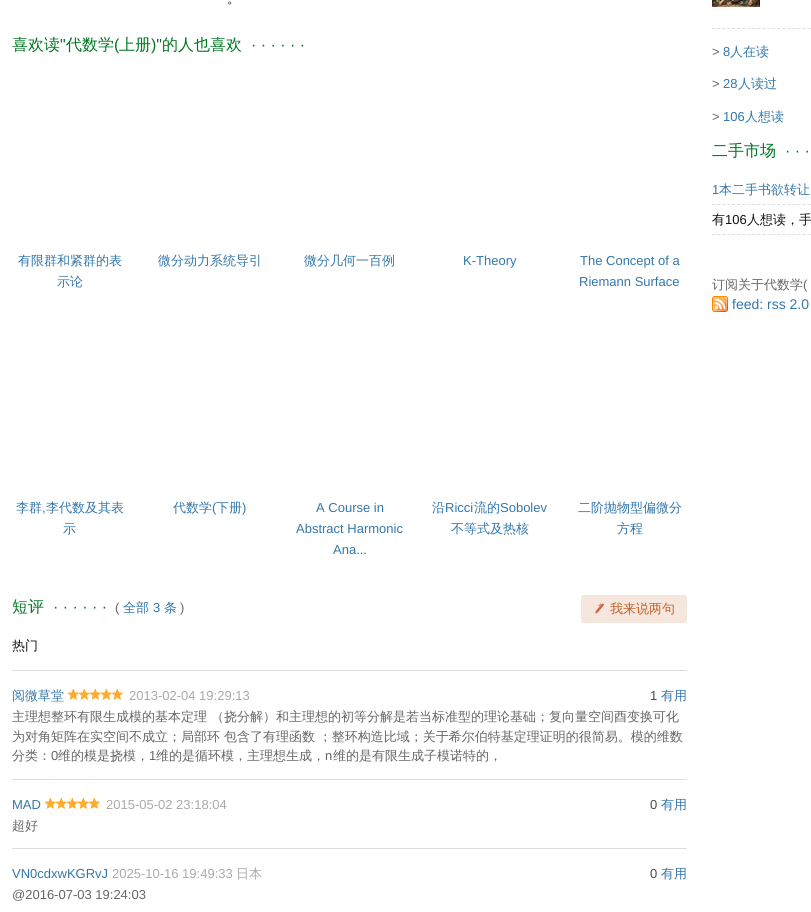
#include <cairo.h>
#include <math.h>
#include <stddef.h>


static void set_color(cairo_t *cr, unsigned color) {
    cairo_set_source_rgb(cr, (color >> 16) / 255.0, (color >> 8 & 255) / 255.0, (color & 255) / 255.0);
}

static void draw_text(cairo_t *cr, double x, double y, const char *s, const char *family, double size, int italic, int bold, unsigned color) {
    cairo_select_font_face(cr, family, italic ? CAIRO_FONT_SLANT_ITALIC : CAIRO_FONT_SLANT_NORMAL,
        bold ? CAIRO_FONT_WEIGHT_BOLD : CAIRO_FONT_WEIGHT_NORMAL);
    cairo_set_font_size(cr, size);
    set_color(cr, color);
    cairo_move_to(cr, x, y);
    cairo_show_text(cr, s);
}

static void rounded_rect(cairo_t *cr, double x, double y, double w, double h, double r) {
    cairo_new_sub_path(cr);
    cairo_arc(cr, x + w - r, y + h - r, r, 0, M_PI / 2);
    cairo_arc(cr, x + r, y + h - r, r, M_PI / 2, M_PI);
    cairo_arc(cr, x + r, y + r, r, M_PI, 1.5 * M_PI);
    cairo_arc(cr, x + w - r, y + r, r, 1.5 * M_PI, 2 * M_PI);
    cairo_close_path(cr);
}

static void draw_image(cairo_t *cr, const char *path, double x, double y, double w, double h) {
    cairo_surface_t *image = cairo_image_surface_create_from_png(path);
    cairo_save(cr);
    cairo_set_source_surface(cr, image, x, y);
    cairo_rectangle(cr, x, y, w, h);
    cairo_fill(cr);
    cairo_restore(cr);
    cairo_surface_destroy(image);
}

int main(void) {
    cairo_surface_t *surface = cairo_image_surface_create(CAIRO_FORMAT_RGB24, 811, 912);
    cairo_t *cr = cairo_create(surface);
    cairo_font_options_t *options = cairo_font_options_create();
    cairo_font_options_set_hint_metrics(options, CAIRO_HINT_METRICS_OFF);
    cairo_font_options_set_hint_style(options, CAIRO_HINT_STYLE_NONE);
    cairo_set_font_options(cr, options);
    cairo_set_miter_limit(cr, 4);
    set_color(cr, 0xFFFFFF);
    cairo_paint(cr);
    draw_text(cr, 227, 3, "。", "WenQuanYi Zen Hei Medium", 13, 0, 0, 0x111111);
    draw_text(cr, 12, 50, "喜欢读", "WenQuanYi Zen Hei Medium", 16, 0, 0, 0x007722);
    draw_text(cr, 60, 50, "\"", "Liberation Sans", 16, 0, 0, 0x007722);
    draw_text(cr, 66, 50, "代数学", "WenQuanYi Zen Hei Medium", 16, 0, 0, 0x007722);
    draw_text(cr, 114, 50, "(", "Liberation Sans", 16, 0, 0, 0x007722);
    draw_text(cr, 119, 50, "上册", "WenQuanYi Zen Hei Medium", 16, 0, 0, 0x007722);
    draw_text(cr, 151, 50, ")\"", "Liberation Sans", 16, 0, 0, 0x007722);
    draw_text(cr, 162, 50, "的人也喜欢", "WenQuanYi Zen Hei Medium", 16, 0, 0, 0x007722);
    draw_text(cr, 251, 50, "· · · · · ·", "Liberation Sans", 16, 0, 0, 0x007722);
    draw_text(cr, 18, 265, "有限群和紧群的表", "WenQuanYi Zen Hei Medium", 13, 0, 0, 0x3377AA);
    draw_text(cr, 57, 286, "示论", "WenQuanYi Zen Hei Medium", 13, 0, 0, 0x3377AA);
    draw_text(cr, 158, 265, "微分动力系统导引", "WenQuanYi Zen Hei Medium", 13, 0, 0, 0x3377AA);
    draw_text(cr, 304, 265, "微分几何一百例", "WenQuanYi Zen Hei Medium", 13, 0, 0, 0x3377AA);
    draw_text(cr, 463, 265, "K-Theory", "Liberation Sans", 13, 0, 0, 0x3377AA);
    draw_text(cr, 580, 265, "The Concept of a", "Liberation Sans", 13, 0, 0, 0x3377AA);
    draw_text(cr, 579, 286, "Riemann Surface", "Liberation Sans", 13, 0, 0, 0x3377AA);
    draw_text(cr, 16, 512, "李群 李代数及其表", "WenQuanYi Zen Hei Medium", 13, 0, 0, 0x3377AA);
    draw_text(cr, 42, 512, ",", "Liberation Sans", 13, 0, 0, 0x3377AA);
    draw_text(cr, 63, 533, "示", "WenQuanYi Zen Hei Medium", 13, 0, 0, 0x3377AA);
    draw_text(cr, 173, 512, "代数学", "WenQuanYi Zen Hei Medium", 13, 0, 0, 0x3377AA);
    draw_text(cr, 212, 512, "(", "Liberation Sans", 13, 0, 0, 0x3377AA);
    draw_text(cr, 216, 512, "下册", "WenQuanYi Zen Hei Medium", 13, 0, 0, 0x3377AA);
    draw_text(cr, 242, 512, ")", "Liberation Sans", 13, 0, 0, 0x3377AA);
    draw_text(cr, 316, 512, "A Course in", "Liberation Sans", 13, 0, 0, 0x3377AA);
    draw_text(cr, 296, 533, "Abstract Harmonic", "Liberation Sans", 13, 0, 0, 0x3377AA);
    draw_text(cr, 333, 554, "Ana...", "Liberation Sans", 13, 0, 0, 0x3377AA);
    draw_text(cr, 432, 512, "沿", "WenQuanYi Zen Hei Medium", 13, 0, 0, 0x3377AA);
    draw_text(cr, 445, 512, "Ricci", "Liberation Sans", 13, 0, 0, 0x3377AA);
    draw_text(cr, 474, 512, "流的", "WenQuanYi Zen Hei Medium", 13, 0, 0, 0x3377AA);
    draw_text(cr, 500, 512, "Sobolev", "Liberation Sans", 13, 0, 0, 0x3377AA);
    draw_text(cr, 451, 533, "不等式及热核", "WenQuanYi Zen Hei Medium", 13, 0, 0, 0x3377AA);
    draw_text(cr, 578, 512, "二阶抛物型偏微分", "WenQuanYi Zen Hei Medium", 13, 0, 0, 0x3377AA);
    draw_text(cr, 617, 533, "方程", "WenQuanYi Zen Hei Medium", 13, 0, 0, 0x3377AA);
    draw_text(cr, 12, 612, "短评", "WenQuanYi Zen Hei Medium", 16, 0, 0, 0x007722);
    draw_text(cr, 53, 612, "· · · · · ·", "Liberation Sans", 16, 0, 0, 0x007722);
    draw_text(cr, 115, 612, "(", "Liberation Sans", 13, 0, 0, 0x666666);
    draw_text(cr, 123, 612, "全部", "WenQuanYi Zen Hei Medium", 13, 0, 0, 0x3377AA);
    draw_text(cr, 153, 612, "3", "Liberation Sans", 13, 0, 0, 0x3377AA);
    draw_text(cr, 164, 612, "条", "WenQuanYi Zen Hei Medium", 13, 0, 0, 0x3377AA);
    draw_text(cr, 180, 612, ")", "Liberation Sans", 13, 0, 0, 0x666666);
    set_color(cr, 0xF6E7DE);
    rounded_rect(cr, 581, 595, 106, 28, 2);
    cairo_fill(cr);
    draw_image(cr, "assets/img1.png", 595, 603, 9, 11);
    draw_text(cr, 610, 613, "我来说两句", "WenQuanYi Zen Hei Medium", 13, 0, 0, 0xC65E24);
    draw_text(cr, 12, 650, "热门", "WenQuanYi Zen Hei Medium", 13, 0, 0, 0x111111);
    set_color(cr, 0xDDDDDD);
    rounded_rect(cr, 12, 670, 675, 1, 0.5);
    cairo_fill(cr);
    draw_text(cr, 12, 700, "阅微草堂", "WenQuanYi Zen Hei Medium", 13, 0, 0, 0x3377AA);
    draw_image(cr, "assets/img2.png", 68, 689, 55, 11);
    draw_text(cr, 129, 700, "2013-02-04 19:29:13", "Liberation Sans", 13, 0, 0, 0xAAAAAA);
    draw_text(cr, 650, 700, "1", "Liberation Sans", 13, 0, 0, 0x494949);
    draw_text(cr, 661, 700, "有用", "WenQuanYi Zen Hei Medium", 13, 0, 0, 0x3377AA);
    draw_text(cr, 12, 721, "主理想整环有限生成模的基本定理 （挠分解）和主理想的初等分解是若当标准型的理论基础；复向量空间酉变换可化", "WenQuanYi Zen Hei Medium", 13, 0, 0, 0x666666);
    draw_text(cr, 12, 741, "为对角矩阵在实空间不成立；局部环 包含了有理函数 ；整环构造比域；关于希尔伯特基定理证明的很简易。模的维数", "WenQuanYi Zen Hei Medium", 13, 0, 0, 0x666666);
    draw_text(cr, 12, 760, "分类：", "WenQuanYi Zen Hei Medium", 13, 0, 0, 0x666666);
    draw_text(cr, 51, 760, "0", "Liberation Sans", 13, 0, 0, 0x666666);
    draw_text(cr, 58, 760, "维的模是挠模，", "WenQuanYi Zen Hei Medium", 13, 0, 0, 0x666666);
    draw_text(cr, 149, 760, "1", "Liberation Sans", 13, 0, 0, 0x666666);
    draw_text(cr, 156, 760, "维的是循环模，主理想生成，", "WenQuanYi Zen Hei Medium", 13, 0, 0, 0x666666);
    draw_text(cr, 325, 760, "n", "Liberation Sans", 13, 0, 0, 0x666666);
    draw_text(cr, 333, 760, "维的是有限生成子模诺特的，", "WenQuanYi Zen Hei Medium", 13, 0, 0, 0x666666);
    set_color(cr, 0xDDDDDD);
    rounded_rect(cr, 12, 779, 675, 1, 0.5);
    cairo_fill(cr);
    draw_text(cr, 12, 809, "MAD", "Liberation Sans", 13, 0, 0, 0x3377AA);
    draw_image(cr, "assets/img2.png", 45, 798, 55, 11);
    draw_text(cr, 106, 809, "2015-05-02 23:18:04", "Liberation Sans", 13, 0, 0, 0xAAAAAA);
    draw_text(cr, 650, 809, "0", "Liberation Sans", 13, 0, 0, 0x494949);
    draw_text(cr, 661, 809, "有用", "WenQuanYi Zen Hei Medium", 13, 0, 0, 0x3377AA);
    draw_text(cr, 12, 830, "超好", "WenQuanYi Zen Hei Medium", 13, 0, 0, 0x666666);
    set_color(cr, 0xDDDDDD);
    rounded_rect(cr, 12, 848, 675, 1, 0.5);
    cairo_fill(cr);
    draw_text(cr, 12, 878, "VN0cdxwKGRvJ", "Liberation Sans", 13, 0, 0, 0x3377AA);
    draw_text(cr, 112, 878, "2025-10-16 19:49:33", "Liberation Sans", 13, 0, 0, 0xAAAAAA);
    draw_text(cr, 236, 878, "日本", "WenQuanYi Zen Hei Medium", 13, 0, 0, 0xAAAAAA);
    draw_text(cr, 650, 878, "0", "Liberation Sans", 13, 0, 0, 0x494949);
    draw_text(cr, 661, 878, "有用", "WenQuanYi Zen Hei Medium", 13, 0, 0, 0x3377AA);
    draw_text(cr, 12, 899, "@2016-07-03 19:24:03", "Liberation Sans", 13, 0, 0, 0x666666);
    draw_image(cr, "assets/img3.png", 712, 0, 48, 7);
    cairo_new_path(cr);
    cairo_move_to(cr, 712, 28.5);
    cairo_line_to(cr, 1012, 28.5);
    set_color(cr, 0xDDDDDD);
    cairo_set_line_width(cr, 1);
    cairo_set_dash(cr, (double[]){3, 2.03}, 2, 0);
    cairo_stroke(cr);
    draw_text(cr, 712, 56, ">", "Liberation Sans", 13, 0, 0, 0x666666);
    draw_text(cr, 723, 56, "8", "Liberation Sans", 13, 0, 0, 0x3377AA);
    draw_text(cr, 730, 56, "人在读", "WenQuanYi Zen Hei Medium", 13, 0, 0, 0x3377AA);
    draw_text(cr, 712, 88, ">", "Liberation Sans", 13, 0, 0, 0x666666);
    draw_text(cr, 723, 88, "28", "Liberation Sans", 13, 0, 0, 0x3377AA);
    draw_text(cr, 738, 88, "人读过", "WenQuanYi Zen Hei Medium", 13, 0, 0, 0x3377AA);
    draw_text(cr, 712, 121, ">", "Liberation Sans", 13, 0, 0, 0x666666);
    draw_text(cr, 723, 121, "106", "Liberation Sans", 13, 0, 0, 0x3377AA);
    draw_text(cr, 745, 121, "人想读", "WenQuanYi Zen Hei Medium", 13, 0, 0, 0x3377AA);
    draw_text(cr, 712, 156, "二手市场", "WenQuanYi Zen Hei Medium", 16, 0, 0, 0x007722);
    draw_text(cr, 785, 156, "· · ·", "Liberation Sans", 16, 0, 0, 0x007722);
    cairo_new_path(cr);
    cairo_move_to(cr, 712, 204.5);
    cairo_line_to(cr, 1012, 204.5);
    set_color(cr, 0xDDDDDD);
    cairo_stroke(cr);
    draw_text(cr, 712, 194, "1", "Liberation Sans", 13, 0, 0, 0x3377AA);
    draw_text(cr, 719, 194, "本二手书欲转让", "WenQuanYi Zen Hei Medium", 13, 0, 0, 0x3377AA);
    cairo_new_path(cr);
    cairo_move_to(cr, 712, 234.5);
    cairo_line_to(cr, 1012, 234.5);
    set_color(cr, 0xDDDDDD);
    cairo_stroke(cr);
    draw_text(cr, 712, 224, "有", "WenQuanYi Zen Hei Medium", 13, 0, 0, 0x111111);
    draw_text(cr, 725, 224, "106", "Liberation Sans", 13, 0, 0, 0x111111);
    draw_text(cr, 747, 224, "人想读，手", "WenQuanYi Zen Hei Medium", 13, 0, 0, 0x111111);
    draw_text(cr, 712, 289, "订阅关于代数学", "WenQuanYi Zen Hei Medium", 13, 0, 0, 0x666666);
    draw_text(cr, 803, 289, "(", "Liberation Sans", 13, 0, 0, 0x666666);
    draw_image(cr, "assets/img4.png", 712, 296, 16, 16);
    draw_text(cr, 732, 309, "feed: rss 2.0", "Liberation Sans", 14, 0, 0, 0x3377AA);
    cairo_surface_write_to_png(surface, "output.png");
    cairo_font_options_destroy(options);
    cairo_destroy(cr);
    cairo_surface_destroy(surface);
    return 0;
}
